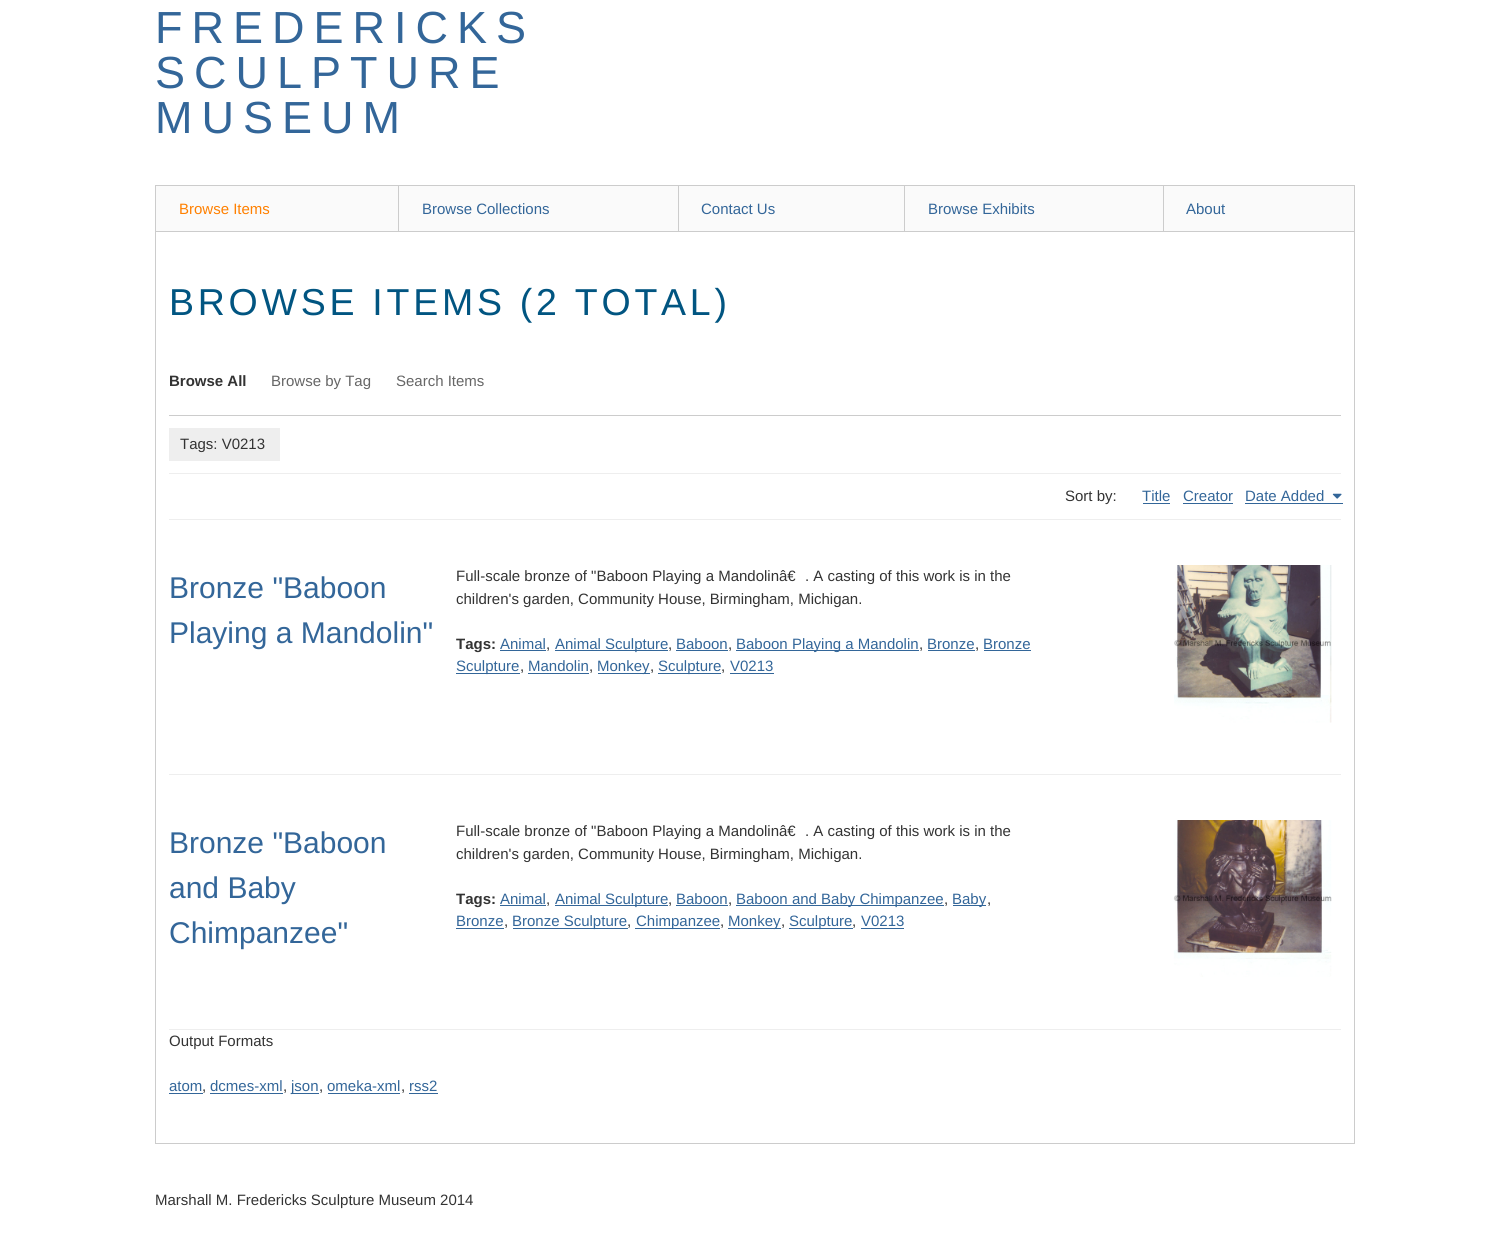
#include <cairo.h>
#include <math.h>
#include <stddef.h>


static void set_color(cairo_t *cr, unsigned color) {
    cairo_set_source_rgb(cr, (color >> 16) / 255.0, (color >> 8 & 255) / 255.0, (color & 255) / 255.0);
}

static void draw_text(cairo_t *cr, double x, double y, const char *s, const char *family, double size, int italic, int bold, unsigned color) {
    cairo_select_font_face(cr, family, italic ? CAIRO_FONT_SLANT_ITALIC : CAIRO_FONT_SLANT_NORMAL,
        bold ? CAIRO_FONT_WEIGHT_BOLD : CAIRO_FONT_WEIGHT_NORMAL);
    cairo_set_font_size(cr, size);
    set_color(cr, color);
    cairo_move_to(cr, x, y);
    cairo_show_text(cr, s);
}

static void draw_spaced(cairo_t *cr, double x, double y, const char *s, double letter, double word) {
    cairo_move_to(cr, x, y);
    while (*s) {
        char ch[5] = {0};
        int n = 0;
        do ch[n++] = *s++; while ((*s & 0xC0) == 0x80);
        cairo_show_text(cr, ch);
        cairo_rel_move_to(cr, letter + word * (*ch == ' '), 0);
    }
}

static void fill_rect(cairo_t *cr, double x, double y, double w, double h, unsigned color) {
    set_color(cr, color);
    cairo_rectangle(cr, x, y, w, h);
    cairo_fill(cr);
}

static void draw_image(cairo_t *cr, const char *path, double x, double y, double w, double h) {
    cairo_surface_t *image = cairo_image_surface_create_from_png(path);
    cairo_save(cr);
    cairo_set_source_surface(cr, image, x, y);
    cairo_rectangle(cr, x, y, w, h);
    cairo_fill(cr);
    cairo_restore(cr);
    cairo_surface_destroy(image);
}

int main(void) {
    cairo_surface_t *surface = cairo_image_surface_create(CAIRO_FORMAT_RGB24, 1510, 1241);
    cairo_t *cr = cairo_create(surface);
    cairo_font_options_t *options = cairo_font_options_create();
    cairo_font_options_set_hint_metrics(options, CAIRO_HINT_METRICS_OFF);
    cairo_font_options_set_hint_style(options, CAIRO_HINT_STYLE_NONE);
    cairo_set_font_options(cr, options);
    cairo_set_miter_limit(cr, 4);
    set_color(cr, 0xFFFFFF);
    cairo_paint(cr);
    cairo_select_font_face(cr, "Liberation Sans", CAIRO_FONT_SLANT_NORMAL, CAIRO_FONT_WEIGHT_NORMAL);
    cairo_set_font_size(cr, 45);
    set_color(cr, 0x336699);
    draw_spaced(cr, 155, 43, "FREDERICKS", 9, 0);
    draw_spaced(cr, 155, 88, "SCULPTURE", 9, 0);
    draw_spaced(cr, 155, 133, "MUSEUM", 9, 0);
    fill_rect(cr, 1354, 185, 1, 46, 0xCCCCCC);
    fill_rect(cr, 156, 186, 242, 45, 0xFAFAFA);
    fill_rect(cr, 155, 185, 1199, 1, 0xCCCCCC);
    fill_rect(cr, 155, 185, 1, 46, 0xCCCCCC);
    draw_text(cr, 179, 214, "Browse Items", "Liberation Sans", 15, 0, 0, 0xFF8000);
    fill_rect(cr, 399, 186, 279, 45, 0xFAFAFA);
    fill_rect(cr, 398, 185, 1, 46, 0xCCCCCC);
    draw_text(cr, 422, 214, "Browse Collections", "Liberation Sans", 15, 0, 0, 0x336699);
    fill_rect(cr, 679, 186, 225, 45, 0xFAFAFA);
    fill_rect(cr, 678, 185, 1, 46, 0xCCCCCC);
    draw_text(cr, 701, 214, "Contact Us", "Liberation Sans", 15, 0, 0, 0x336699);
    fill_rect(cr, 905, 186, 258, 45, 0xFAFAFA);
    fill_rect(cr, 904, 185, 1, 46, 0xCCCCCC);
    draw_text(cr, 928, 214, "Browse Exhibits", "Liberation Sans", 15, 0, 0, 0x336699);
    fill_rect(cr, 1164, 186, 190, 45, 0xFAFAFA);
    fill_rect(cr, 1163, 185, 1, 46, 0xCCCCCC);
    draw_text(cr, 1186, 214, "About", "Liberation Sans", 15, 0, 0, 0x336699);
    cairo_rectangle(cr, 155.5, 231.5, 1199, 912);
    set_color(cr, 0xCCCCCC);
    cairo_set_line_width(cr, 1);
    cairo_stroke(cr);
    cairo_set_font_size(cr, 37.5);
    set_color(cr, 0x015581);
    draw_spaced(cr, 169, 315, "BROWSE ITEMS (2 TOTAL)", 3.75, 0);
    fill_rect(cr, 169, 415, 1172, 1, 0xCCCCCC);
    draw_text(cr, 169, 386, "Browse All", "Liberation Sans", 15, 0, 1, 0x333333);
    draw_text(cr, 271, 386, "Browse by Tag", "Liberation Sans", 15, 0, 0, 0x666666);
    draw_text(cr, 396, 386, "Search Items", "Liberation Sans", 15, 0, 0, 0x666666);
    fill_rect(cr, 169, 473, 1172, 1, 0xEEEEEE);
    fill_rect(cr, 169, 428, 111, 33, 0xEEEEEE);
    draw_text(cr, 180, 449, "Tags: V0213", "Liberation Sans", 15, 0, 0, 0x333333);
    draw_text(cr, 1065, 501, "Sort by:", "Liberation Sans", 15, 0, 0, 0x333333);
    draw_text(cr, 1142, 501, "Title", "Liberation Sans", 15, 0, 0, 0x336699);
    fill_rect(cr, 1143, 503, 27, 1, 0x336699);
    draw_text(cr, 1183, 501, "Creator", "Liberation Sans", 15, 0, 0, 0x336699);
    fill_rect(cr, 1183, 503, 50, 1, 0x336699);
    draw_text(cr, 1245, 501, "Date Added", "Liberation Sans", 15, 0, 0, 0x336699);
    fill_rect(cr, 1245, 503, 98, 1, 0x336699);
    draw_image(cr, "assets/img1.png", 1332, 493, 10, 6);
    fill_rect(cr, 169, 519, 1172, 1, 0xEEEEEE);
    fill_rect(cr, 169, 774, 1172, 1, 0xEEEEEE);
    draw_text(cr, 169, 598, "Bronze \"Baboon", "Liberation Sans", 30, 0, 0, 0x336699);
    draw_text(cr, 169, 643, "Playing a Mandolin\"", "Liberation Sans", 30, 0, 0, 0x336699);
    draw_text(cr, 456, 581, "Full-scale bronze of \"Baboon Playing a Mandolinâ€", "Liberation Sans", 15, 0, 0, 0x333333);
    draw_text(cr, 805, 581, ". A casting of this work is in the", "Liberation Sans", 15, 0, 0, 0x333333);
    draw_text(cr, 456, 604, "children's garden, Community House, Birmingham, Michigan.", "Liberation Sans", 15, 0, 0, 0x333333);
    draw_image(cr, "assets/img2.png", 1174, 565, 158, 158);
    draw_text(cr, 456, 649, "Tags:", "Liberation Sans", 15, 0, 1, 0x333333);
    draw_text(cr, 500, 649, "Animal", "Liberation Sans", 15, 0, 0, 0x336699);
    fill_rect(cr, 500, 650, 46, 1, 0x336699);
    draw_text(cr, 546, 649, ",", "Liberation Sans", 15, 0, 0, 0x333333);
    fill_rect(cr, 555, 650, 113, 1, 0x336699);
    draw_text(cr, 555, 649, "Animal Sculpture", "Liberation Sans", 15, 0, 0, 0x336699);
    draw_text(cr, 668, 649, ",", "Liberation Sans", 15, 0, 0, 0x333333);
    draw_text(cr, 676, 649, "Baboon", "Liberation Sans", 15, 0, 0, 0x336699);
    fill_rect(cr, 676, 650, 52, 1, 0x336699);
    draw_text(cr, 728, 649, ",", "Liberation Sans", 15, 0, 0, 0x333333);
    fill_rect(cr, 736, 650, 183, 1, 0x336699);
    draw_text(cr, 736, 649, "Baboon Playing a Mandolin", "Liberation Sans", 15, 0, 0, 0x336699);
    draw_text(cr, 919, 649, ",", "Liberation Sans", 15, 0, 0, 0x333333);
    draw_text(cr, 927, 649, "Bronze", "Liberation Sans", 15, 0, 0, 0x336699);
    fill_rect(cr, 928, 650, 47, 1, 0x336699);
    draw_text(cr, 975, 649, ",", "Liberation Sans", 15, 0, 0, 0x333333);
    draw_text(cr, 983, 649, "Bronze", "Liberation Sans", 15, 0, 0, 0x336699);
    fill_rect(cr, 984, 650, 47, 1, 0x336699);
    fill_rect(cr, 456, 673, 64, 1, 0x336699);
    draw_text(cr, 456, 671, "Sculpture", "Liberation Sans", 15, 0, 0, 0x336699);
    draw_text(cr, 520, 671, ",", "Liberation Sans", 15, 0, 0, 0x333333);
    draw_text(cr, 528, 671, "Mandolin", "Liberation Sans", 15, 0, 0, 0x336699);
    fill_rect(cr, 528, 673, 61, 1, 0x336699);
    draw_text(cr, 589, 671, ",", "Liberation Sans", 15, 0, 0, 0x333333);
    fill_rect(cr, 598, 673, 52, 1, 0x336699);
    draw_text(cr, 597, 671, "Monkey", "Liberation Sans", 15, 0, 0, 0x336699);
    draw_text(cr, 650, 671, ",", "Liberation Sans", 15, 0, 0, 0x333333);
    fill_rect(cr, 658, 673, 63, 1, 0x336699);
    draw_text(cr, 658, 671, "Sculpture", "Liberation Sans", 15, 0, 0, 0x336699);
    draw_text(cr, 721, 671, ",", "Liberation Sans", 15, 0, 0, 0x333333);
    draw_text(cr, 730, 671, "V0213", "Liberation Sans", 15, 0, 0, 0x336699);
    fill_rect(cr, 730, 673, 44, 1, 0x336699);
    fill_rect(cr, 169, 1029, 1172, 1, 0xEEEEEE);
    draw_text(cr, 169, 853, "Bronze \"Baboon", "Liberation Sans", 30, 0, 0, 0x336699);
    draw_text(cr, 169, 898, "and Baby", "Liberation Sans", 30, 0, 0, 0x336699);
    draw_text(cr, 169, 943, "Chimpanzee\"", "Liberation Sans", 30, 0, 0, 0x336699);
    draw_text(cr, 456, 836, "Full-scale bronze of \"Baboon Playing a Mandolinâ€", "Liberation Sans", 15, 0, 0, 0x333333);
    draw_text(cr, 805, 836, ". A casting of this work is in the", "Liberation Sans", 15, 0, 0, 0x333333);
    draw_text(cr, 456, 859, "children's garden, Community House, Birmingham, Michigan.", "Liberation Sans", 15, 0, 0, 0x333333);
    draw_image(cr, "assets/img3.png", 1173, 820, 159, 157);
    draw_text(cr, 456, 904, "Tags:", "Liberation Sans", 15, 0, 1, 0x333333);
    draw_text(cr, 500, 904, "Animal", "Liberation Sans", 15, 0, 0, 0x336699);
    fill_rect(cr, 500, 905, 46, 1, 0x336699);
    draw_text(cr, 546, 904, ",", "Liberation Sans", 15, 0, 0, 0x333333);
    fill_rect(cr, 555, 905, 113, 1, 0x336699);
    draw_text(cr, 555, 904, "Animal Sculpture", "Liberation Sans", 15, 0, 0, 0x336699);
    draw_text(cr, 668, 904, ",", "Liberation Sans", 15, 0, 0, 0x333333);
    draw_text(cr, 676, 904, "Baboon", "Liberation Sans", 15, 0, 0, 0x336699);
    fill_rect(cr, 676, 905, 52, 1, 0x336699);
    draw_text(cr, 728, 904, ",", "Liberation Sans", 15, 0, 0, 0x333333);
    fill_rect(cr, 736, 905, 208, 1, 0x336699);
    draw_text(cr, 736, 904, "Baboon and Baby Chimpanzee", "Liberation Sans", 15, 0, 0, 0x336699);
    draw_text(cr, 944, 904, ",", "Liberation Sans", 15, 0, 0, 0x333333);
    fill_rect(cr, 953, 905, 33, 1, 0x336699);
    draw_text(cr, 952, 904, "Baby", "Liberation Sans", 15, 0, 0, 0x336699);
    draw_text(cr, 987, 904, ",", "Liberation Sans", 15, 0, 0, 0x333333);
    draw_text(cr, 456, 926, "Bronze", "Liberation Sans", 15, 0, 0, 0x336699);
    fill_rect(cr, 456, 928, 48, 1, 0x336699);
    draw_text(cr, 504, 926, ",", "Liberation Sans", 15, 0, 0, 0x333333);
    fill_rect(cr, 513, 928, 115, 1, 0x336699);
    draw_text(cr, 512, 926, "Bronze Sculpture", "Liberation Sans", 15, 0, 0, 0x336699);
    draw_text(cr, 627, 926, ",", "Liberation Sans", 15, 0, 0, 0x333333);
    fill_rect(cr, 635, 928, 85, 1, 0x336699);
    draw_text(cr, 636, 926, "Chimpanzee", "Liberation Sans", 15, 0, 0, 0x336699);
    draw_text(cr, 720, 926, ",", "Liberation Sans", 15, 0, 0, 0x333333);
    fill_rect(cr, 728, 928, 53, 1, 0x336699);
    draw_text(cr, 728, 926, "Monkey", "Liberation Sans", 15, 0, 0, 0x336699);
    draw_text(cr, 781, 926, ",", "Liberation Sans", 15, 0, 0, 0x333333);
    fill_rect(cr, 789, 928, 64, 1, 0x336699);
    draw_text(cr, 789, 926, "Sculpture", "Liberation Sans", 15, 0, 0, 0x336699);
    draw_text(cr, 852, 926, ",", "Liberation Sans", 15, 0, 0, 0x333333);
    draw_text(cr, 861, 926, "V0213", "Liberation Sans", 15, 0, 0, 0x336699);
    fill_rect(cr, 861, 928, 43, 1, 0x336699);
    draw_text(cr, 169, 1046, "Output Formats", "Liberation Sans", 15, 0, 0, 0x333333);
    draw_text(cr, 169, 1091, "atom", "Liberation Sans", 15, 0, 0, 0x336699);
    fill_rect(cr, 169, 1093, 34, 1, 0x336699);
    draw_text(cr, 202, 1091, ",", "Liberation Sans", 15, 0, 0, 0x333333);
    draw_text(cr, 210, 1091, "dcmes-xml", "Liberation Sans", 15, 0, 0, 0x336699);
    fill_rect(cr, 210, 1093, 73, 1, 0x336699);
    draw_text(cr, 283, 1091, ",", "Liberation Sans", 15, 0, 0, 0x333333);
    fill_rect(cr, 291, 1093, 28, 1, 0x336699);
    draw_text(cr, 291, 1091, "json", "Liberation Sans", 15, 0, 0, 0x336699);
    draw_text(cr, 319, 1091, ",", "Liberation Sans", 15, 0, 0, 0x333333);
    draw_text(cr, 327, 1091, "omeka-xml", "Liberation Sans", 15, 0, 0, 0x336699);
    fill_rect(cr, 328, 1093, 72, 1, 0x336699);
    draw_text(cr, 401, 1091, ",", "Liberation Sans", 15, 0, 0, 0x333333);
    draw_text(cr, 409, 1091, "rss2", "Liberation Sans", 15, 0, 0, 0x336699);
    fill_rect(cr, 409, 1093, 29, 1, 0x336699);
    draw_text(cr, 155, 1205, "Marshall M. Fredericks Sculpture Museum 2014", "Liberation Sans", 15, 0, 0, 0x333333);
    cairo_surface_write_to_png(surface, "output.png");
    cairo_font_options_destroy(options);
    cairo_destroy(cr);
    cairo_surface_destroy(surface);
    return 0;
}
